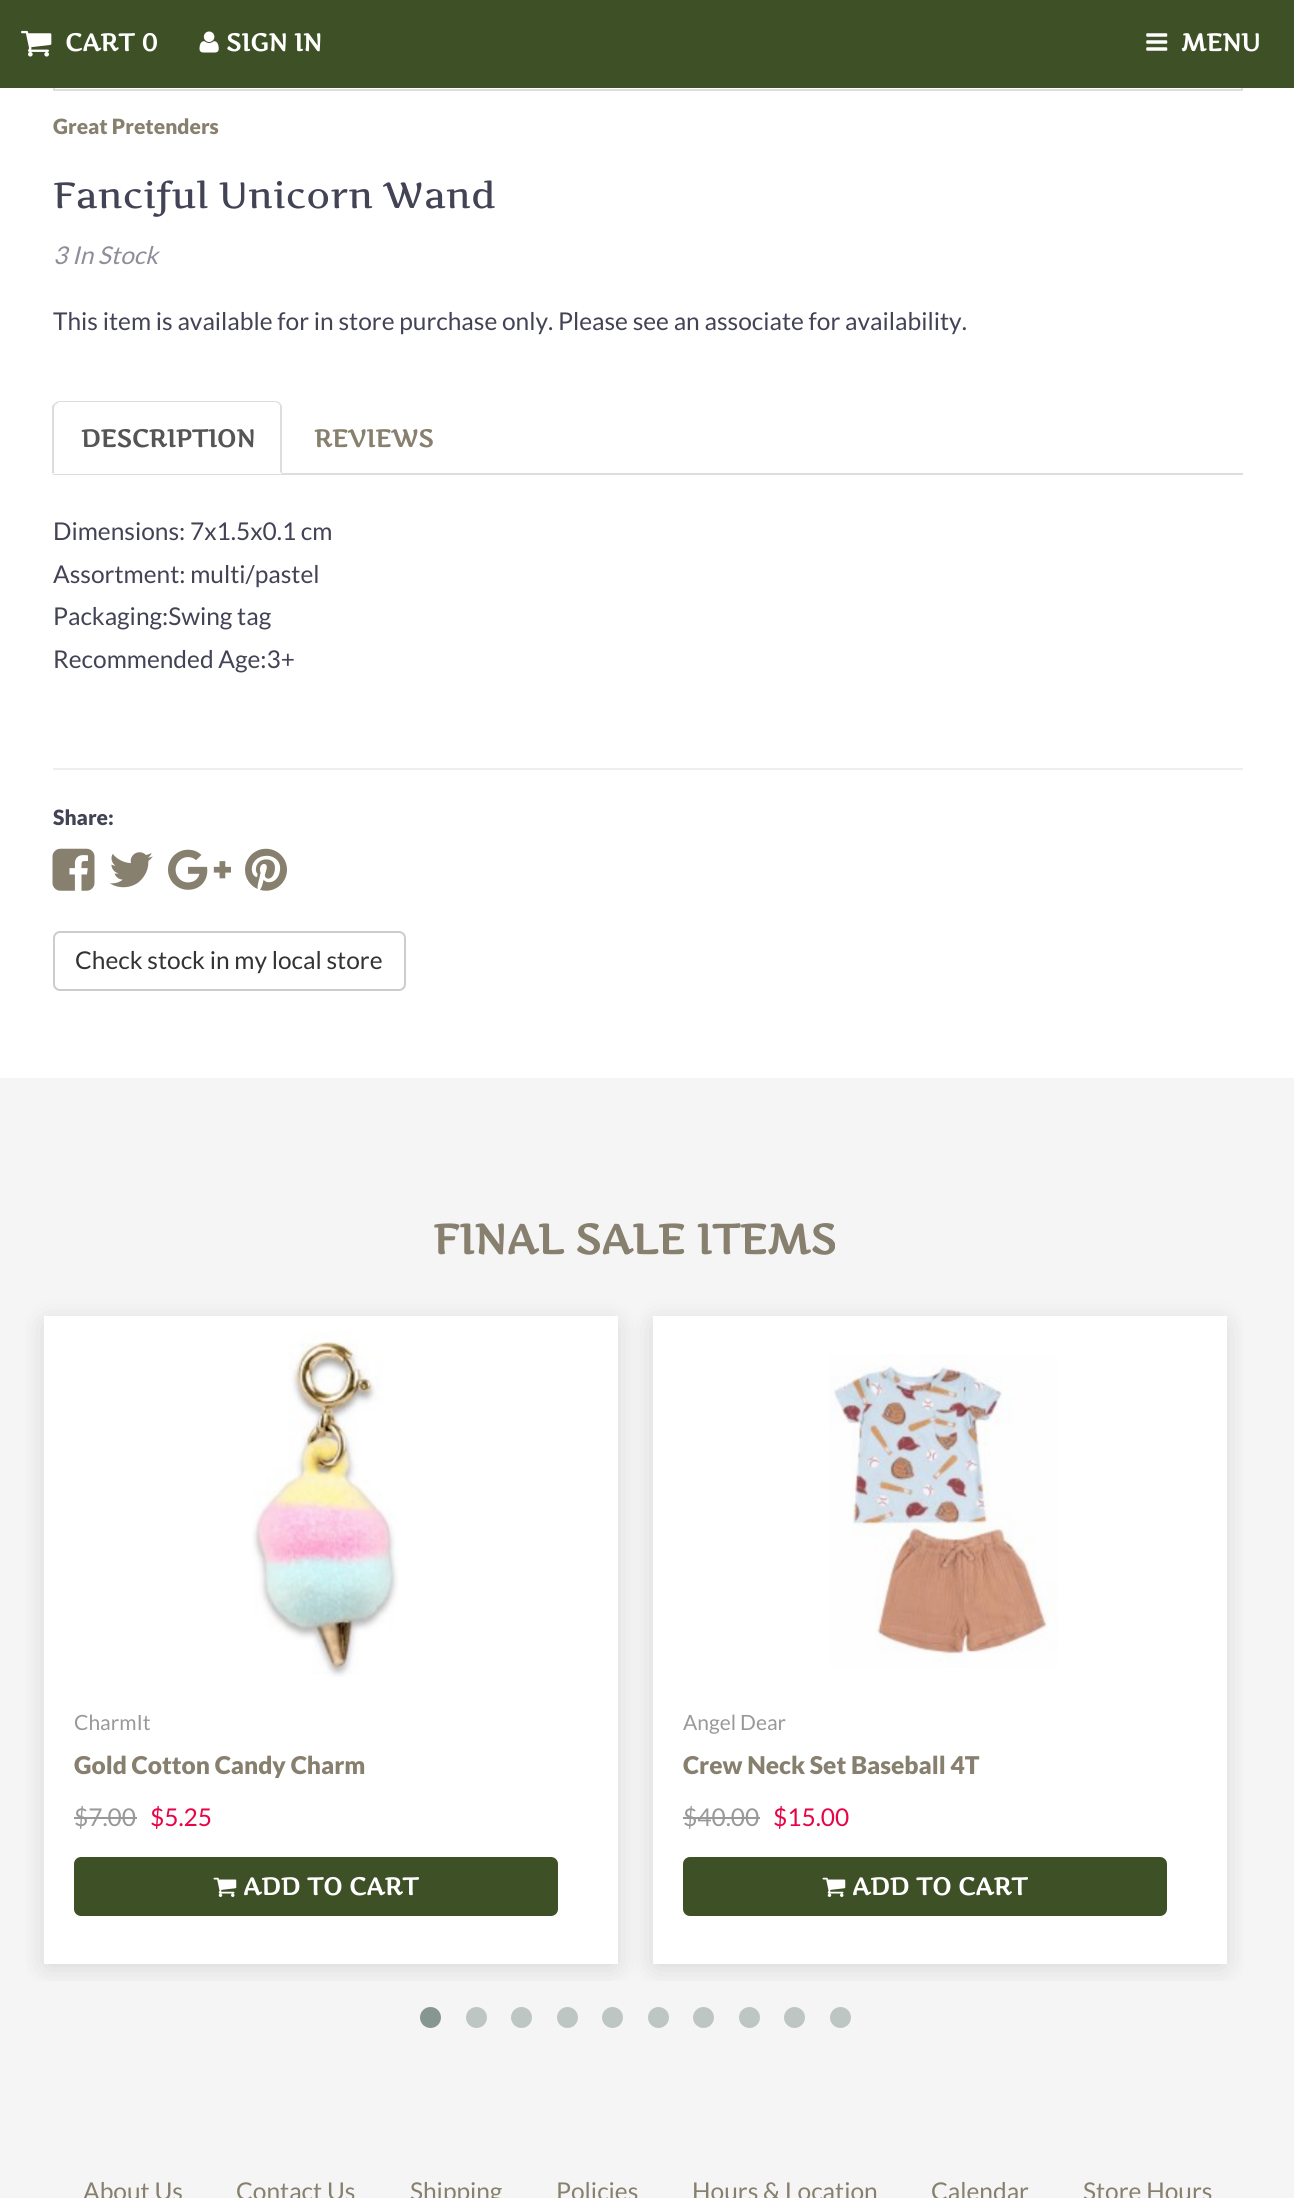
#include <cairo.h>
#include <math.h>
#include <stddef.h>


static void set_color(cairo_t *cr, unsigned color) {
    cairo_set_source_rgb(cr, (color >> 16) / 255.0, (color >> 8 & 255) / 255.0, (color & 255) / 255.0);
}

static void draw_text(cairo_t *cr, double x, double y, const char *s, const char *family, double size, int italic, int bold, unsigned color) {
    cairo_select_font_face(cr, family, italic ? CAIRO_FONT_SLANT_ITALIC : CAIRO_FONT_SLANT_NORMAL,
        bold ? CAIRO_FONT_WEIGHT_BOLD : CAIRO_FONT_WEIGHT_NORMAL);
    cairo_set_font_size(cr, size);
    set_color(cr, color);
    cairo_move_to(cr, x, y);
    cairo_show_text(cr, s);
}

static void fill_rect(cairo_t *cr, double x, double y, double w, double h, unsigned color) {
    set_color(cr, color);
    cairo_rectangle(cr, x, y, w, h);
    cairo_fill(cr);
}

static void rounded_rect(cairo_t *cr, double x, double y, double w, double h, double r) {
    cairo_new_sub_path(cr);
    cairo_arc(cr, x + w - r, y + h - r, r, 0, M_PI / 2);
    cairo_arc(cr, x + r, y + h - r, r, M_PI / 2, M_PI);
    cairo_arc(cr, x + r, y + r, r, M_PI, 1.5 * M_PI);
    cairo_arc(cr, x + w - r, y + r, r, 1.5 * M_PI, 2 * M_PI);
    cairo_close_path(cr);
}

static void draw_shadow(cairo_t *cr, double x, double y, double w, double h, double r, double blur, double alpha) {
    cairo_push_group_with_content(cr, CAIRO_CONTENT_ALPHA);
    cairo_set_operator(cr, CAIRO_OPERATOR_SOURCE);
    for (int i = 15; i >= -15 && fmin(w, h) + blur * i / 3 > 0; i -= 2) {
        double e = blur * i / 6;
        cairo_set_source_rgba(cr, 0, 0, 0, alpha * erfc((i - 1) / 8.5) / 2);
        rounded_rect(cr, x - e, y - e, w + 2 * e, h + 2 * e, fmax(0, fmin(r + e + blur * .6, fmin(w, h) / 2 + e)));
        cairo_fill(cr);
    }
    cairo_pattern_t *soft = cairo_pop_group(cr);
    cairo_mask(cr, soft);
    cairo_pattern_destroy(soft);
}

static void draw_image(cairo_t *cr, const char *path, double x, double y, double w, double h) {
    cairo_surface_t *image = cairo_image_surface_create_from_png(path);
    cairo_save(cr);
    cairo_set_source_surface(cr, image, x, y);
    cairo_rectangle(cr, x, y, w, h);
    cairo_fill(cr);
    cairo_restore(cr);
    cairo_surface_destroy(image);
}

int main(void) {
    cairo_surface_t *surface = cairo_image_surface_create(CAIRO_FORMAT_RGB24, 1294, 2198);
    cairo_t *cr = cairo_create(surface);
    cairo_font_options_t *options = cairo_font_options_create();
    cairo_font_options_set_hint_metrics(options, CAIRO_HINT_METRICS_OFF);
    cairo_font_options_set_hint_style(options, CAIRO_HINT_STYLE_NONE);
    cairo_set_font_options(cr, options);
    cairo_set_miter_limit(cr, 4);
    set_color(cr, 0xF5F5F5);
    cairo_paint(cr);
    fill_rect(cr, 0, 88, 1294, 990, 0xFFFFFF);
    cairo_rectangle(cr, 54, -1, 1188, 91);
    set_color(cr, 0xDDDDDD);
    cairo_stroke(cr);
    fill_rect(cr, 0, 0, 1294, 88, 0x3E5025);
    draw_image(cr, "assets/img1.png", 21, 30, 31, 27);
    draw_text(cr, 65, 51, "CART 0", "Artifika", 24.5, 0, 1, 0xFFFFFF);
    draw_image(cr, "assets/img2.png", 199, 31, 20, 22);
    draw_text(cr, 226, 51, "SIGN IN", "Artifika", 24.5, 0, 1, 0xFFFFFF);
    draw_image(cr, "assets/img3.png", 1146, 33, 22, 18);
    draw_text(cr, 1181, 51, "MENU", "Artifika", 24.5, 0, 1, 0xFFFFFF);
    draw_text(cr, 53, 134, "Great Pretenders", "Lato Black", 21, 0, 0, 0x88806F);
    draw_text(cr, 53, 208, "Fanciful Unicorn Wand", "Artifika", 36.75, 0, 0, 0x434356);
    draw_text(cr, 53, 264, "3 In Stock", "Lato", 24.5, 1, 0, 0x8E8E9A);
    draw_text(cr, 53, 330, "This item is available for in store purchase only. Please see an associate for availability.", "Lato", 24.5, 0, 0, 0x434356);
    fill_rect(cr, 53, 473, 1190, 2, 0xDDDDDD);
    set_color(cr, 0xFFFFFF);
    cairo_new_path(cr);
    cairo_move_to(cr, 60, 401);
    cairo_line_to(cr, 275, 401);
    cairo_curve_to(cr, 279, 401, 282, 404, 282, 408);
    cairo_line_to(cr, 282, 474);
    cairo_line_to(cr, 53, 474);
    cairo_line_to(cr, 53, 408);
    cairo_curve_to(cr, 53, 404, 56, 401, 60, 401);
    cairo_close_path(cr);
    cairo_fill(cr);
    set_color(cr, 0xDDDDDD);
    cairo_new_path(cr);
    cairo_move_to(cr, 60, 401);
    cairo_curve_to(cr, 58, 401, 56, 402, 55, 403);
    cairo_line_to(cr, 56, 404);
    cairo_line_to(cr, 59, 402);
    cairo_line_to(cr, 275, 402);
    cairo_curve_to(cr, 276, 402, 278, 403, 279, 404);
    cairo_line_to(cr, 280, 403);
    cairo_curve_to(cr, 279, 402, 277, 401, 275, 401);
    cairo_close_path(cr);
    cairo_fill(cr);
    cairo_new_path(cr);
    cairo_move_to(cr, 280, 403);
    cairo_line_to(cr, 282, 406);
    cairo_line_to(cr, 282, 474);
    cairo_line_to(cr, 280, 472);
    cairo_line_to(cr, 280, 408);
    cairo_curve_to(cr, 280, 406, 280, 405, 279, 404);
    cairo_close_path(cr);
    cairo_fill(cr);
    cairo_new_path(cr);
    cairo_move_to(cr, 52, 406);
    cairo_line_to(cr, 55, 403);
    cairo_line_to(cr, 56, 404);
    cairo_curve_to(cr, 55, 405, 54, 407, 54, 408);
    cairo_line_to(cr, 54, 472);
    cairo_line_to(cr, 55, 472);
    cairo_line_to(cr, 52, 474);
    cairo_close_path(cr);
    cairo_fill(cr);
    draw_text(cr, 81, 447, "DESCRIPTION", "Artifika", 24.5, 0, 1, 0x555555);
    draw_text(cr, 314, 447, "REVIEWS", "Artifika", 24.5, 0, 1, 0x88806F);
    draw_text(cr, 53, 540, "Dimensions: 7x1.5x0.1 cm", "Lato", 24.5, 0, 0, 0x434356);
    draw_text(cr, 53, 583, "Assortment: multi/pastel", "Lato", 24.5, 0, 0, 0x434356);
    draw_text(cr, 53, 625, "Packaging:Swing tag", "Lato", 24.5, 0, 0, 0x434356);
    draw_text(cr, 53, 668, "Recommended Age:3+", "Lato", 24.5, 0, 0, 0x434356);
    fill_rect(cr, 53, 768, 1190, 2, 0xEEEEEE);
    draw_text(cr, 53, 825, "Share:", "Lato Black", 21, 0, 0, 0x434356);
    draw_image(cr, "assets/img4.png", 52, 848, 43, 43);
    draw_image(cr, "assets/img5.png", 110, 852, 43, 36);
    draw_image(cr, "assets/img6.png", 168, 849, 63, 41);
    draw_image(cr, "assets/img7.png", 245, 848, 42, 43);
    rounded_rect(cr, 54, 932, 351, 58, 6);
    set_color(cr, 0xCCCCCC);
    cairo_stroke(cr);
    draw_text(cr, 75, 969, "Check stock in my local store", "Lato", 24.5, 0, 0, 0x333333);
    draw_text(cr, 433, 1254, "FINAL SALE ITEMS", "Artifika", 42, 0, 1, 0x88806F);
    set_color(cr, 0x869791);
    cairo_new_path(cr);
    cairo_arc(cr, 430.5, 2017.5, 10.5, 0, 2 * M_PI);
    cairo_fill(cr);
    cairo_save(cr);
    cairo_rectangle(cr, 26, 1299, 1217, 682);
    cairo_clip(cr);
    set_color(cr, 0x000000);
    draw_shadow(cr, 47, 1325, 567, 640, 0, 14, 0.15);
    cairo_restore(cr);
    fill_rect(cr, 44, 1316, 574, 648, 0xFFFFFF);
    draw_image(cr, "assets/img8.png", 252, 1331, 146, 346);
    draw_text(cr, 74, 1730, "CharmIt", "Lato", 21, 0, 0, 0x999999);
    draw_text(cr, 74, 1774, "Gold Cotton Candy Charm", "Lato Black", 24.5, 0, 0, 0x88806F);
    draw_text(cr, 74, 1826, "$7.00", "Lato", 24.5, 0, 0, 0x999999);
    fill_rect(cr, 74, 1817, 63, 2, 0x999999);
    draw_text(cr, 150, 1826, "$5.25", "Lato", 24.5, 0, 0, 0xE80547);
    set_color(cr, 0x3E5025);
    rounded_rect(cr, 75, 1858, 482, 57, 6);
    cairo_fill_preserve(cr);
    cairo_stroke(cr);
    draw_image(cr, "assets/img9.png", 213, 1877, 24, 20);
    draw_text(cr, 243, 1895, "ADD TO CART", "Artifika", 24.5, 0, 1, 0xFFFFFF);
    cairo_save(cr);
    cairo_rectangle(cr, 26, 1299, 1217, 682);
    cairo_clip(cr);
    set_color(cr, 0x000000);
    draw_shadow(cr, 656, 1325, 567, 640, 0, 14, 0.15);
    cairo_restore(cr);
    fill_rect(cr, 653, 1316, 574, 648, 0xFFFFFF);
    draw_image(cr, "assets/img10.png", 829, 1354, 229, 314);
    draw_text(cr, 683, 1730, "Angel Dear", "Lato", 21, 0, 0, 0x999999);
    draw_text(cr, 683, 1774, "Crew Neck Set Baseball 4T", "Lato Black", 24.5, 0, 0, 0x88806F);
    draw_text(cr, 683, 1826, "$40.00", "Lato", 24.5, 0, 0, 0x999999);
    fill_rect(cr, 683, 1817, 77, 2, 0x999999);
    draw_text(cr, 773, 1826, "$15.00", "Lato", 24.5, 0, 0, 0xE80547);
    set_color(cr, 0x3E5025);
    rounded_rect(cr, 684, 1858, 482, 57, 6);
    cairo_fill_preserve(cr);
    cairo_stroke(cr);
    draw_image(cr, "assets/img9.png", 822, 1877, 24, 20);
    draw_text(cr, 852, 1895, "ADD TO CART", "Artifika", 24.5, 0, 1, 0xFFFFFF);
    set_color(cr, 0xBEC6C3);
    cairo_new_path(cr);
    cairo_arc(cr, 476.5, 2017.5, 10.5, 0, 2 * M_PI);
    cairo_fill(cr);
    cairo_arc(cr, 521.5, 2017.5, 10.5, 0, 2 * M_PI);
    cairo_fill(cr);
    cairo_arc(cr, 567.5, 2017.5, 10.5, 0, 2 * M_PI);
    cairo_fill(cr);
    cairo_arc(cr, 612.5, 2017.5, 10.5, 0, 2 * M_PI);
    cairo_fill(cr);
    cairo_arc(cr, 658.5, 2017.5, 10.5, 0, 2 * M_PI);
    cairo_fill(cr);
    cairo_arc(cr, 703.5, 2017.5, 10.5, 0, 2 * M_PI);
    cairo_fill(cr);
    cairo_arc(cr, 749.5, 2017.5, 10.5, 0, 2 * M_PI);
    cairo_fill(cr);
    cairo_arc(cr, 794.5, 2017.5, 10.5, 0, 2 * M_PI);
    cairo_fill(cr);
    cairo_arc(cr, 840.5, 2017.5, 10.5, 0, 2 * M_PI);
    cairo_fill(cr);
    draw_text(cr, 83, 2200, "About Us", "Lato", 24.5, 0, 0, 0x88806F);
    draw_text(cr, 236, 2200, "Contact Us", "Lato", 24.5, 0, 0, 0x88806F);
    draw_text(cr, 410, 2200, "Shipping", "Lato", 24.5, 0, 0, 0x88806F);
    draw_text(cr, 556, 2200, "Policies", "Lato", 24.5, 0, 0, 0x88806F);
    draw_text(cr, 692, 2200, "Hours & Location", "Lato", 24.5, 0, 0, 0x88806F);
    draw_text(cr, 931, 2200, "Calendar", "Lato", 24.5, 0, 0, 0x88806F);
    draw_text(cr, 1083, 2200, "Store Hours", "Lato", 24.5, 0, 0, 0x88806F);
    cairo_surface_write_to_png(surface, "output.png");
    cairo_font_options_destroy(options);
    cairo_destroy(cr);
    cairo_surface_destroy(surface);
    return 0;
}
